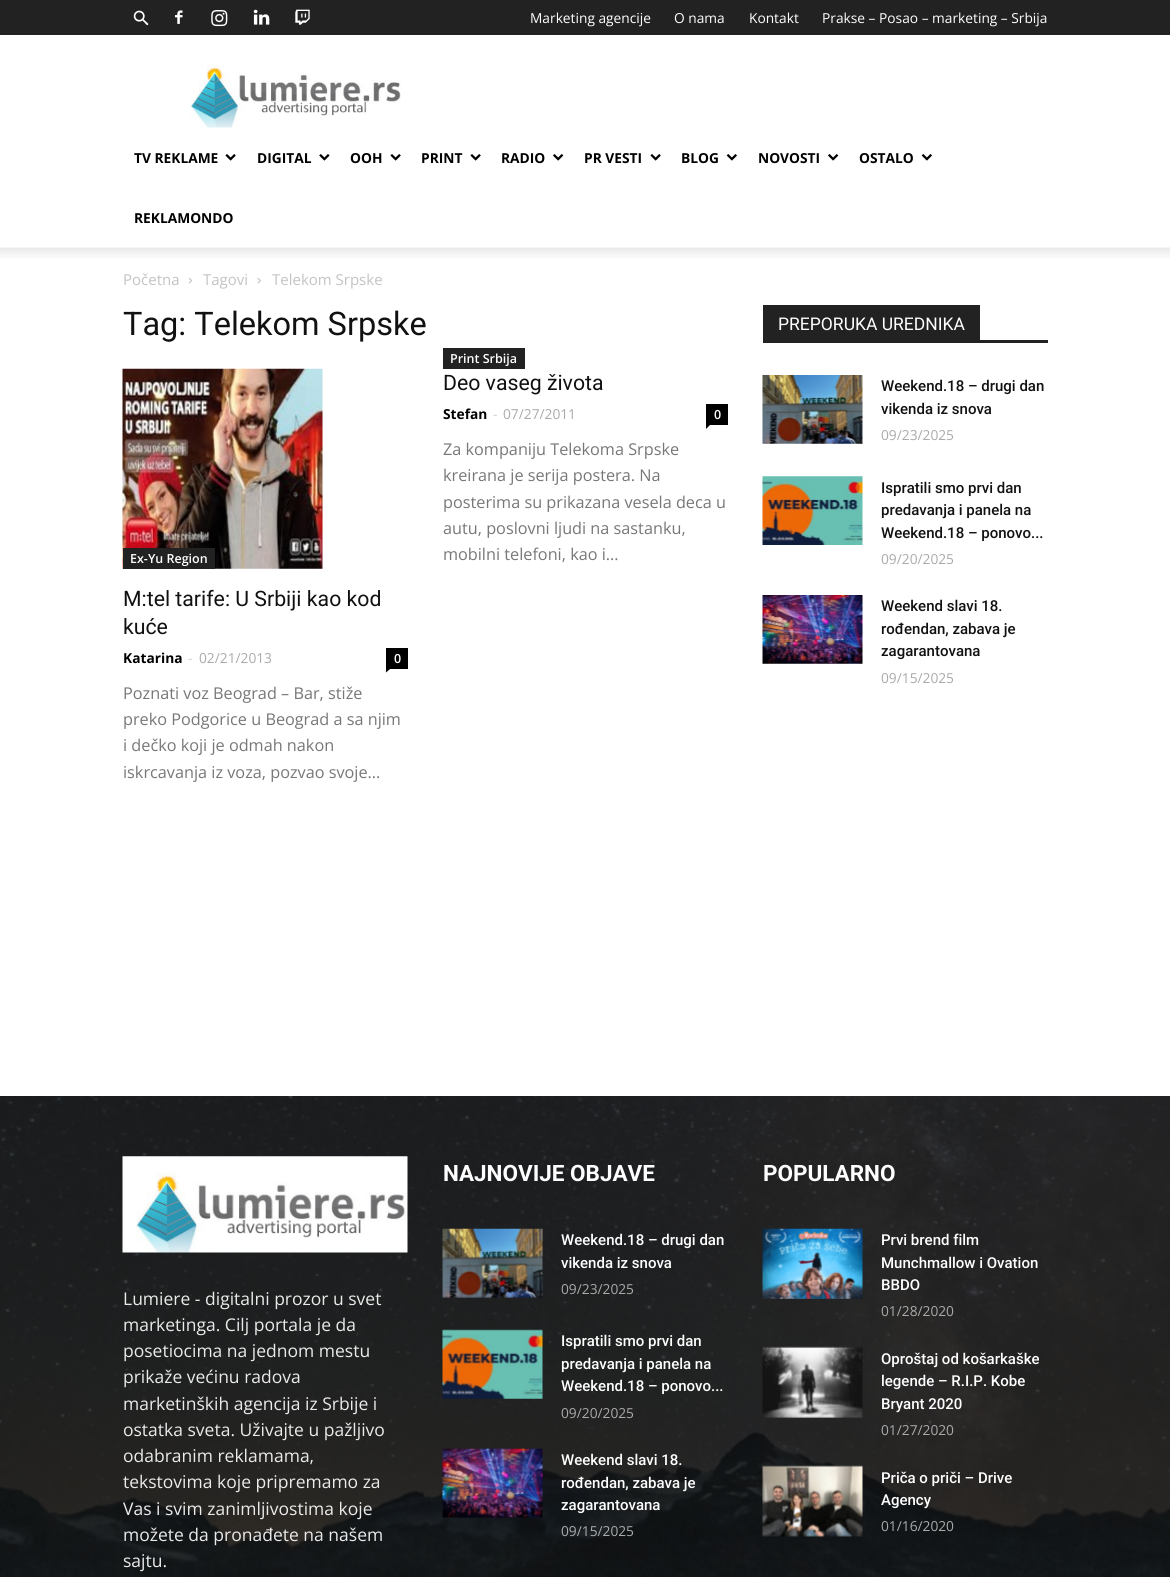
#include <cairo.h>
#include <math.h>
#include <stddef.h>


static void set_color(cairo_t *cr, unsigned color) {
    cairo_set_source_rgb(cr, (color >> 16) / 255.0, (color >> 8 & 255) / 255.0, (color & 255) / 255.0);
}

static void draw_text(cairo_t *cr, double x, double y, const char *s, const char *family, double size, int italic, int bold, unsigned color) {
    cairo_select_font_face(cr, family, italic ? CAIRO_FONT_SLANT_ITALIC : CAIRO_FONT_SLANT_NORMAL,
        bold ? CAIRO_FONT_WEIGHT_BOLD : CAIRO_FONT_WEIGHT_NORMAL);
    cairo_set_font_size(cr, size);
    set_color(cr, color);
    cairo_move_to(cr, x, y);
    cairo_show_text(cr, s);
}

static void fill_rect(cairo_t *cr, double x, double y, double w, double h, unsigned color) {
    set_color(cr, color);
    cairo_rectangle(cr, x, y, w, h);
    cairo_fill(cr);
}

static void draw_image(cairo_t *cr, const char *path, double x, double y, double w, double h) {
    cairo_surface_t *image = cairo_image_surface_create_from_png(path);
    cairo_save(cr);
    cairo_set_source_surface(cr, image, x, y);
    cairo_rectangle(cr, x, y, w, h);
    cairo_fill(cr);
    cairo_restore(cr);
    cairo_surface_destroy(image);
}

int main(void) {
    cairo_surface_t *surface = cairo_image_surface_create(CAIRO_FORMAT_RGB24, 1170, 1577);
    cairo_t *cr = cairo_create(surface);
    cairo_font_options_t *options = cairo_font_options_create();
    cairo_font_options_set_hint_metrics(options, CAIRO_HINT_METRICS_OFF);
    cairo_font_options_set_hint_style(options, CAIRO_HINT_STYLE_NONE);
    cairo_set_font_options(cr, options);
    cairo_set_miter_limit(cr, 4);
    set_color(cr, 0xFFFFFF);
    cairo_paint(cr);
    fill_rect(cr, 0, 0, 1170, 35, 0x222222);
    draw_image(cr, "assets/img1.png", 133, 10, 16, 16);
    draw_image(cr, "assets/img2.png", 175, 10, 8, 14);
    draw_image(cr, "assets/img3.png", 211, 10, 17, 17);
    draw_image(cr, "assets/img4.png", 253, 9, 17, 16);
    draw_image(cr, "assets/img5.png", 295, 9, 15, 16);
    draw_text(cr, 530, 23, "Marketing agencije", "Open Sans", 13.75, 0, 0, 0xFFFFFF);
    draw_text(cr, 674, 23, "O nama", "Open Sans", 13.75, 0, 0, 0xFFFFFF);
    draw_text(cr, 749, 23, "Kontakt", "Open Sans", 13.75, 0, 0, 0xFFFFFF);
    draw_text(cr, 822, 23, "Prakse – Posao – marketing – Srbija", "Open Sans", 13.75, 0, 0, 0xFFFFFF);
    draw_image(cr, "assets/img6.png", 191, 65, 210, 63);
    draw_text(cr, 134, 163, "TV REKLAME", "Open Sans", 13.75, 0, 1, 0x000000);
    draw_image(cr, "assets/img7.png", 225, 154, 11, 7);
    draw_text(cr, 257, 163, "DIGITAL", "Open Sans", 13.75, 0, 1, 0x000000);
    draw_image(cr, "assets/img8.png", 319, 154, 11, 7);
    draw_text(cr, 350, 163, "OOH", "Open Sans", 13.75, 0, 1, 0x000000);
    draw_image(cr, "assets/img7.png", 390, 154, 11, 7);
    draw_text(cr, 421, 163, "PRINT", "Open Sans", 13.75, 0, 1, 0x000000);
    draw_image(cr, "assets/img7.png", 470, 154, 11, 7);
    draw_text(cr, 501, 163, "RADIO", "Open Sans", 13.75, 0, 1, 0x000000);
    draw_image(cr, "assets/img9.png", 553, 154, 11, 7);
    draw_text(cr, 584, 163, "PR VESTI", "Open Sans", 13.75, 0, 1, 0x000000);
    draw_image(cr, "assets/img7.png", 650, 154, 11, 7);
    draw_text(cr, 681, 163, "BLOG", "Open Sans", 13.75, 0, 1, 0x000000);
    draw_image(cr, "assets/img10.png", 726, 154, 11, 7);
    draw_text(cr, 758, 163, "NOVOSTI", "Open Sans", 13.75, 0, 1, 0x000000);
    draw_image(cr, "assets/img9.png", 828, 154, 11, 7);
    draw_text(cr, 859, 163, "OSTALO", "Open Sans", 13.75, 0, 1, 0x000000);
    draw_image(cr, "assets/img10.png", 921, 154, 11, 7);
    draw_text(cr, 134, 223, "REKLAMONDO", "Open Sans", 13.75, 0, 1, 0x000000);
    draw_image(cr, "assets/img11.png", 0, 247, 1170, 11);
    draw_text(cr, 123, 285, "Početna", "Open Sans", 15, 0, 0, 0xC3C3C3);
    draw_image(cr, "assets/img12.png", 188, 277, 4, 7);
    draw_text(cr, 203, 285, "Tagovi", "Open Sans", 15, 0, 0, 0xC3C3C3);
    draw_image(cr, "assets/img13.png", 257, 277, 4, 7);
    draw_text(cr, 272, 285, "Telekom Srpske", "Open Sans", 15, 0, 0, 0xC3C3C3);
    draw_text(cr, 123, 335, "Tag: Telekom Srpske", "Roboto", 32.5, 0, 0, 0x111111);
    fill_rect(cr, 443, 348, 82, 21, 0x222222);
    draw_text(cr, 450, 363, "Print Srbija", "Open Sans SemiBold", 12.5, 0, 0, 0xFFFFFF);
    draw_text(cr, 443, 390, "Deo vaseg života", "Roboto", 21.25, 0, 0, 0x111111);
    draw_text(cr, 443, 419, "Stefan", "Open Sans", 13.75, 0, 1, 0x000000);
    draw_text(cr, 493, 419, "-", "Open Sans", 13.75, 0, 0, 0xCCCCCC);
    draw_text(cr, 503, 419, "07/27/2011", "Open Sans", 13.75, 0, 0, 0xAAAAAA);
    fill_rect(cr, 706, 404, 22, 21, 0x000000);
    draw_text(cr, 714, 419, "0", "Open Sans SemiBold", 12.5, 0, 0, 0xFFFFFF);
    set_color(cr, 0x000000);
    cairo_new_path(cr);
    cairo_move_to(cr, 706, 425);
    cairo_line_to(cr, 710, 425);
    cairo_line_to(cr, 706, 429);
    cairo_close_path(cr);
    cairo_fill(cr);
    draw_text(cr, 443, 455, "Za kompaniju Telekoma Srpske", "Open Sans", 16.25, 0, 0, 0x777777);
    draw_text(cr, 443, 481, "kreirana je serija postera. Na", "Open Sans", 16.25, 0, 0, 0x777777);
    draw_text(cr, 443, 508, "posterima su prikazana vesela deca u", "Open Sans", 16.25, 0, 0, 0x777777);
    draw_text(cr, 443, 534, "autu, poslovni ljudi na sastanku,", "Open Sans", 16.25, 0, 0, 0x777777);
    draw_text(cr, 443, 560, "mobilni telefoni, kao i...", "Open Sans", 16.25, 0, 0, 0x777777);
    draw_image(cr, "assets/img14.png", 122, 368, 201, 201);
    fill_rect(cr, 123, 548, 92, 21, 0x222222);
    draw_text(cr, 130, 563, "Ex-Yu Region", "Open Sans SemiBold", 12.5, 0, 0, 0xFFFFFF);
    draw_text(cr, 123, 606, "M:tel tarife: U Srbiji kao kod", "Roboto", 21.25, 0, 0, 0x111111);
    draw_text(cr, 123, 634, "kuće", "Roboto", 21.25, 0, 0, 0x111111);
    draw_text(cr, 123, 663, "Katarina", "Open Sans", 13.75, 0, 1, 0x000000);
    draw_text(cr, 188, 663, "-", "Open Sans", 13.75, 0, 0, 0xCCCCCC);
    draw_text(cr, 199, 663, "02/21/2013", "Open Sans", 13.75, 0, 0, 0xAAAAAA);
    fill_rect(cr, 386, 648, 22, 21, 0x000000);
    draw_text(cr, 394, 663, "0", "Open Sans SemiBold", 12.5, 0, 0, 0xFFFFFF);
    set_color(cr, 0x000000);
    cairo_new_path(cr);
    cairo_move_to(cr, 386, 669);
    cairo_line_to(cr, 390, 669);
    cairo_line_to(cr, 386, 672.5);
    cairo_close_path(cr);
    cairo_fill(cr);
    draw_text(cr, 123, 699, "Poznati voz Beograd – Bar, stiže", "Open Sans", 16.25, 0, 0, 0x777777);
    draw_text(cr, 123, 725, "preko Podgorice u Beograd a sa njim", "Open Sans", 16.25, 0, 0, 0x777777);
    draw_text(cr, 123, 751, "i dečko koji je odmah nakon", "Open Sans", 16.25, 0, 0, 0x777777);
    draw_text(cr, 123, 778, "iskrcavanja iz voza, pozvao svoje...", "Open Sans", 16.25, 0, 0, 0x777777);
    fill_rect(cr, 763, 340, 285, 3, 0x222222);
    fill_rect(cr, 763, 305, 217, 35, 0x222222);
    draw_text(cr, 778, 330, "PREPORUKA UREDNIKA", "Roboto", 17.5, 0, 0, 0xFFFFFF);
    draw_image(cr, "assets/img15.png", 762, 375, 101, 69);
    draw_text(cr, 881, 391, "Weekend.18 – drugi dan", "Roboto Medium", 15, 0, 0, 0x111111);
    draw_text(cr, 881, 414, "vikenda iz snova", "Roboto Medium", 15, 0, 0, 0x111111);
    draw_text(cr, 881, 440, "09/23/2025", "Open Sans", 13.75, 0, 0, 0xAAAAAA);
    draw_image(cr, "assets/img16.png", 762, 476, 101, 69);
    draw_text(cr, 881, 493, "Ispratili smo prvi dan", "Roboto Medium", 15, 0, 0, 0x111111);
    draw_text(cr, 881, 515, "predavanja i panela na", "Roboto Medium", 15, 0, 0, 0x111111);
    draw_text(cr, 881, 538, "Weekend.18 – ponovo...", "Roboto Medium", 15, 0, 0, 0x111111);
    draw_text(cr, 881, 564, "09/20/2025", "Open Sans", 13.75, 0, 0, 0xAAAAAA);
    draw_image(cr, "assets/img17.png", 762, 595, 101, 69);
    draw_text(cr, 881, 611, "Weekend slavi 18.", "Roboto Medium", 15, 0, 0, 0x111111);
    draw_text(cr, 881, 634, "rođendan, zabava je", "Roboto Medium", 15, 0, 0, 0x111111);
    draw_text(cr, 881, 656, "zagarantovana", "Roboto Medium", 15, 0, 0, 0x111111);
    draw_text(cr, 881, 683, "09/15/2025", "Open Sans", 13.75, 0, 0, 0xAAAAAA);
    fill_rect(cr, 0, 1096, 1170, 481, 0x111111);
    draw_image(cr, "assets/img18.png", 0, 1096, 1170, 481);
    draw_image(cr, "assets/img19.png", 122, 1156, 286, 97);
    draw_text(cr, 123, 1305, "Lumiere - digitalni prozor u svet", "Open Sans", 17.5, 0, 0, 0xEAEAEA);
    draw_text(cr, 123, 1331, "marketinga. Cilj portala je da", "Open Sans", 17.5, 0, 0, 0xEAEAEA);
    draw_text(cr, 123, 1357, "posetiocima na jednom mestu", "Open Sans", 17.5, 0, 0, 0xEAEAEA);
    draw_text(cr, 123, 1383, "prikaže većinu radova", "Open Sans", 17.5, 0, 0, 0xEAEAEA);
    draw_text(cr, 123, 1410, "marketinških agencija iz Srbije i", "Open Sans", 17.5, 0, 0, 0xEAEAEA);
    draw_text(cr, 123, 1436, "ostatka sveta. Uživajte u pažljivo", "Open Sans", 17.5, 0, 0, 0xEAEAEA);
    draw_text(cr, 123, 1462, "odabranim reklamama,", "Open Sans", 17.5, 0, 0, 0xEAEAEA);
    draw_text(cr, 123, 1488, "tekstovima koje pripremamo za", "Open Sans", 17.5, 0, 0, 0xEAEAEA);
    draw_text(cr, 123, 1515, "Vas i svim zanimljivostima koje", "Open Sans", 17.5, 0, 0, 0xEAEAEA);
    draw_text(cr, 123, 1541, "možete da pronađete na našem", "Open Sans", 17.5, 0, 0, 0xEAEAEA);
    draw_text(cr, 123, 1567, "sajtu.", "Open Sans", 17.5, 0, 0, 0xEAEAEA);
    draw_text(cr, 443, 1181, "NAJNOVIJE OBJAVE", "Roboto", 22.5, 0, 1, 0xFFFFFF);
    draw_image(cr, "assets/img20.png", 442, 1228, 101, 70);
    draw_text(cr, 561, 1245, "Weekend.18 – drugi dan", "Roboto Medium", 15, 0, 0, 0xFFFFFF);
    draw_text(cr, 561, 1268, "vikenda iz snova", "Roboto Medium", 15, 0, 0, 0xFFFFFF);
    draw_text(cr, 561, 1294, "09/23/2025", "Open Sans", 13.75, 0, 0, 0xAAAAAA);
    draw_image(cr, "assets/img21.png", 442, 1329, 101, 70);
    draw_text(cr, 561, 1346, "Ispratili smo prvi dan", "Roboto Medium", 15, 0, 0, 0xFFFFFF);
    draw_text(cr, 561, 1369, "predavanja i panela na", "Roboto Medium", 15, 0, 0, 0xFFFFFF);
    draw_text(cr, 561, 1391, "Weekend.18 – ponovo...", "Roboto Medium", 15, 0, 0, 0xFFFFFF);
    draw_text(cr, 561, 1418, "09/20/2025", "Open Sans", 13.75, 0, 0, 0xAAAAAA);
    draw_image(cr, "assets/img22.png", 442, 1448, 101, 70);
    draw_text(cr, 561, 1465, "Weekend slavi 18.", "Roboto Medium", 15, 0, 0, 0xFFFFFF);
    draw_text(cr, 561, 1488, "rođendan, zabava je", "Roboto Medium", 15, 0, 0, 0xFFFFFF);
    draw_text(cr, 561, 1510, "zagarantovana", "Roboto Medium", 15, 0, 0, 0xFFFFFF);
    draw_text(cr, 561, 1536, "09/15/2025", "Open Sans", 13.75, 0, 0, 0xAAAAAA);
    draw_text(cr, 763, 1181, "POPULARNO", "Roboto", 22.5, 0, 1, 0xFFFFFF);
    draw_image(cr, "assets/img23.png", 762, 1228, 101, 71);
    draw_text(cr, 881, 1245, "Prvi brend film", "Roboto Medium", 15, 0, 0, 0xFFFFFF);
    draw_text(cr, 881, 1268, "Munchmallow i Ovation", "Roboto Medium", 15, 0, 0, 0xFFFFFF);
    draw_text(cr, 881, 1290, "BBDO", "Roboto Medium", 15, 0, 0, 0xFFFFFF);
    draw_text(cr, 881, 1316, "01/28/2020", "Open Sans", 13.75, 0, 0, 0xAAAAAA);
    draw_image(cr, "assets/img24.png", 762, 1346, 101, 72);
    draw_text(cr, 881, 1364, "Oproštaj od košarkaške", "Roboto Medium", 15, 0, 0, 0xFFFFFF);
    draw_text(cr, 881, 1386, "legende – R.I.P. Kobe", "Roboto Medium", 15, 0, 0, 0xFFFFFF);
    draw_text(cr, 881, 1409, "Bryant 2020", "Roboto Medium", 15, 0, 0, 0xFFFFFF);
    draw_text(cr, 881, 1435, "01/27/2020", "Open Sans", 13.75, 0, 0, 0xAAAAAA);
    draw_image(cr, "assets/img25.png", 762, 1465, 101, 72);
    draw_text(cr, 881, 1483, "Priča o priči – Drive", "Roboto Medium", 15, 0, 0, 0xFFFFFF);
    draw_text(cr, 881, 1505, "Agency", "Roboto Medium", 15, 0, 0, 0xFFFFFF);
    draw_text(cr, 881, 1531, "01/16/2020", "Open Sans", 13.75, 0, 0, 0xAAAAAA);
    cairo_surface_write_to_png(surface, "output.png");
    cairo_font_options_destroy(options);
    cairo_destroy(cr);
    cairo_surface_destroy(surface);
    return 0;
}
